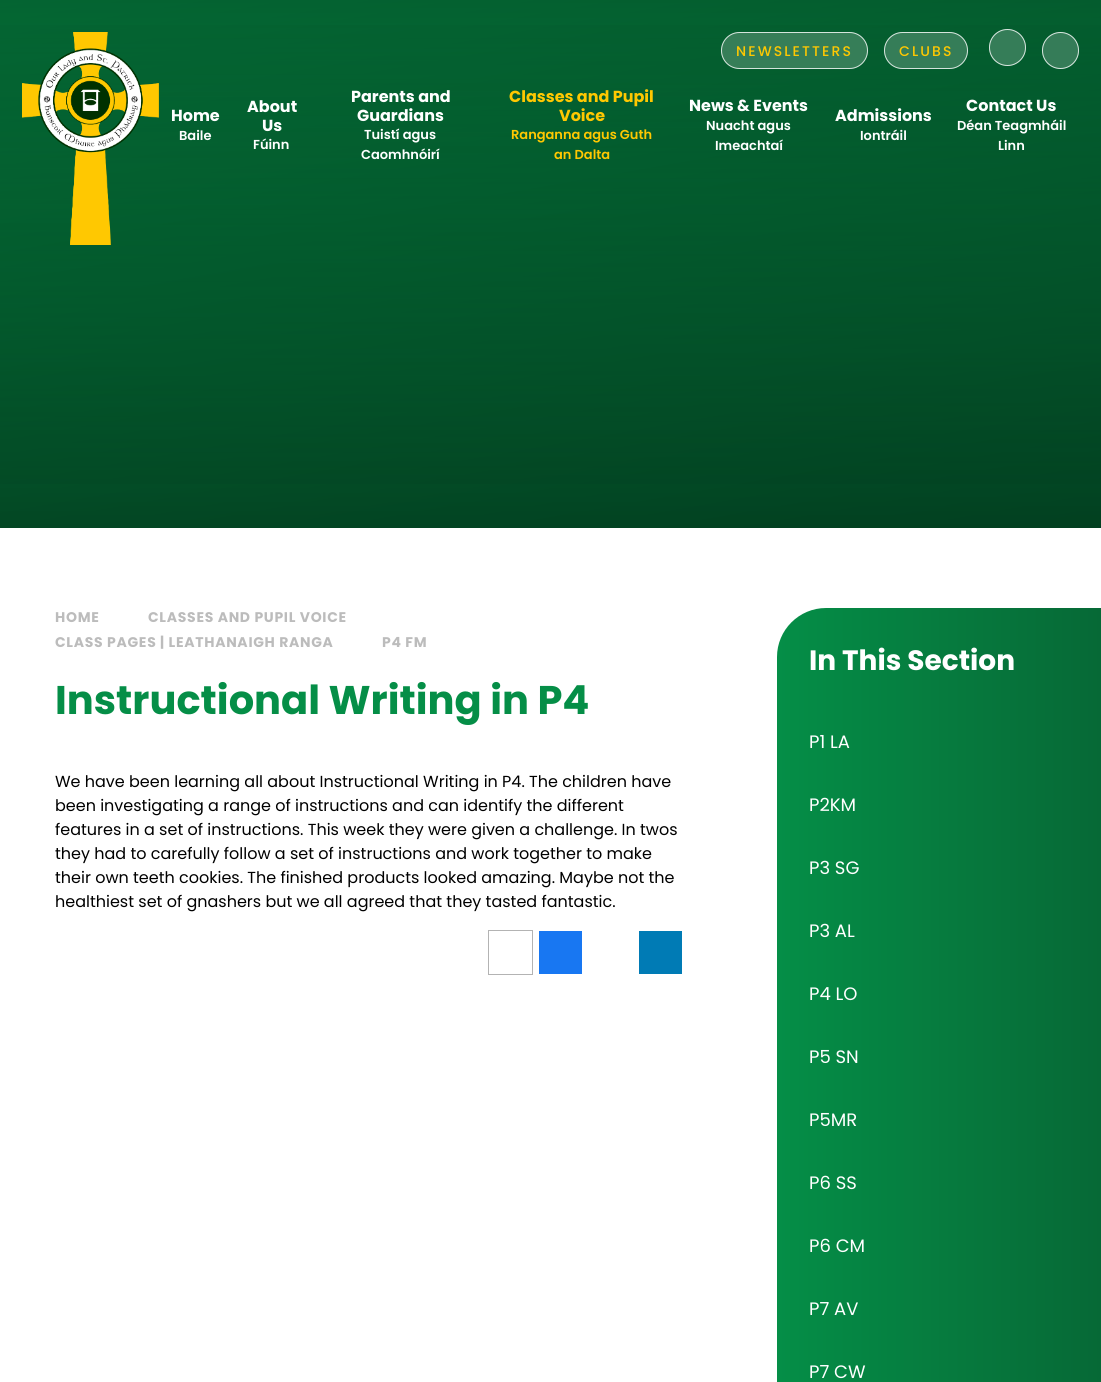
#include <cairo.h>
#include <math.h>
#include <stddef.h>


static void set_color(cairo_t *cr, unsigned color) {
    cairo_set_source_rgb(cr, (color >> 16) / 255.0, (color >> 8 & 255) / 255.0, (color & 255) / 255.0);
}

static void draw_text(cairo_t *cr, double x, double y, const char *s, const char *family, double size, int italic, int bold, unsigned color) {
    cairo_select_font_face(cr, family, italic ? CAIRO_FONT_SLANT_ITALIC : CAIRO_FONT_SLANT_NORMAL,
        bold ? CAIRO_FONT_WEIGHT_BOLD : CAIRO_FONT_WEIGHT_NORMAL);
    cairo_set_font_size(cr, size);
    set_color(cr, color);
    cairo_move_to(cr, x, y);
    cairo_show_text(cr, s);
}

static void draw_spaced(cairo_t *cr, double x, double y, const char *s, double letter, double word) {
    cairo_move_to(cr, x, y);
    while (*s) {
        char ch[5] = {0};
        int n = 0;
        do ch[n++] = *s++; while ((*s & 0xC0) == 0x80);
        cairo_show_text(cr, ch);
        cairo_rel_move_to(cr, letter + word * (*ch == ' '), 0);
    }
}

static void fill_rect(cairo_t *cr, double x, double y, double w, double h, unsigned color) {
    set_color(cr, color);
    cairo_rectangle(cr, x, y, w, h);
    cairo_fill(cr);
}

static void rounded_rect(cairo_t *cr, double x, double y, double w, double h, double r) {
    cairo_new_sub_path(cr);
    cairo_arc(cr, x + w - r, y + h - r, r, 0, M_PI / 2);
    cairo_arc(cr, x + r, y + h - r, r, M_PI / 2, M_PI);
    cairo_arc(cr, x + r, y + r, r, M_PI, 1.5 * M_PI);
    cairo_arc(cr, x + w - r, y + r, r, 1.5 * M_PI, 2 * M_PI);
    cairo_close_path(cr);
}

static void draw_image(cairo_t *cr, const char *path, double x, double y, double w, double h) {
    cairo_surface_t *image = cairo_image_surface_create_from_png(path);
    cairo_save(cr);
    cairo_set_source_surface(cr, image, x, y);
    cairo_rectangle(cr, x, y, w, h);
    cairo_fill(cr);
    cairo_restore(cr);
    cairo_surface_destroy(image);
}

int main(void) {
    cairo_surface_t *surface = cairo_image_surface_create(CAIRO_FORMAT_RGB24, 1101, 1382);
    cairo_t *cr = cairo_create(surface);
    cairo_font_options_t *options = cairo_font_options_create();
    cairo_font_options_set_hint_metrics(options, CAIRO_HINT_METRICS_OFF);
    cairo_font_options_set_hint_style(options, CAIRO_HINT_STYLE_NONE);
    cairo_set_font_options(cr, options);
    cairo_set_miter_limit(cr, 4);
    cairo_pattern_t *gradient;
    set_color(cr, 0xFFFFFF);
    cairo_paint(cr);
    gradient = cairo_pattern_create_linear(489, -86, 612, 614);
    cairo_pattern_add_color_stop_rgba(gradient, 0, 0.024, 0.655, 0.325, 1);
    cairo_pattern_add_color_stop_rgba(gradient, 1, 0.016, 0.459, 0.231, 1);
    cairo_set_source(cr, gradient);
    cairo_pattern_destroy(gradient);
    cairo_rectangle(cr, 0, 0, 1101, 528);
    cairo_fill(cr);
    gradient = cairo_pattern_create_linear(551, 0, 551, 528);
    cairo_pattern_add_color_stop_rgba(gradient, 0, 0, 0, 0, 0);
    cairo_pattern_add_color_stop_rgba(gradient, 1, 0, 0, 0, 0.46);
    cairo_set_source(cr, gradient);
    cairo_pattern_destroy(gradient);
    cairo_rectangle(cr, 0, 25, 1101, 503);
    cairo_fill(cr);
    gradient = cairo_pattern_create_linear(551, 0, 551, 528);
    cairo_pattern_add_color_stop_rgba(gradient, 0, 0, 0, 0, 0.4);
    cairo_pattern_add_color_stop_rgba(gradient, 1, 0, 0, 0, 0);
    cairo_set_source(cr, gradient);
    cairo_pattern_destroy(gradient);
    cairo_rectangle(cr, 0, 0, 1101, 484);
    cairo_fill(cr);
    draw_image(cr, "assets/img1.png", 22, 32, 137, 213);
    set_color(cr, 0x367E58);
    rounded_rect(cr, 721, 32, 147, 37, 18.5);
    cairo_fill(cr);
    rounded_rect(cr, 721.5, 32.5, 146, 36, 18);
    cairo_set_source_rgba(cr, 1, 1, 1, 0.79);
    cairo_set_line_width(cr, 1);
    cairo_stroke(cr);
    cairo_select_font_face(cr, "Poppins Medium", CAIRO_FONT_SLANT_NORMAL, CAIRO_FONT_WEIGHT_NORMAL);
    cairo_set_font_size(cr, 14);
    set_color(cr, 0xFFC801);
    draw_spaced(cr, 736, 56, "NEWSLETTERS", 2.1, 0);
    set_color(cr, 0x357D58);
    rounded_rect(cr, 884, 32, 84, 37, 18.5);
    cairo_fill(cr);
    rounded_rect(cr, 884.5, 32.5, 83, 36, 18);
    cairo_set_source_rgba(cr, 1, 1, 1, 0.79);
    cairo_stroke(cr);
    set_color(cr, 0xFFC801);
    draw_spaced(cr, 899, 56, "CLUBS", 2.1, 0);
    set_color(cr, 0x357D58);
    cairo_new_path(cr);
    cairo_arc(cr, 1007.5, 47.5, 18.5, 0, 2 * M_PI);
    cairo_fill(cr);
    cairo_arc(cr, 1007.5, 47.5, 18, 0, 2 * M_PI);
    cairo_set_source_rgba(cr, 1, 1, 1, 0.8);
    cairo_stroke(cr);
    set_color(cr, 0x357C58);
    cairo_arc(cr, 1060.5, 50.5, 18.5, 0, 2 * M_PI);
    cairo_fill(cr);
    cairo_arc(cr, 1060.5, 50.5, 18, 0, 2 * M_PI);
    cairo_set_source_rgba(cr, 1, 1, 1, 0.8);
    cairo_stroke(cr);
    draw_text(cr, 171, 121, "Home", "Poppins", 16, 0, 1, 0xFFFFFF);
    draw_text(cr, 179, 140, "Baile", "Poppins SemiBold", 13, 0, 0, 0xFFFFFF);
    draw_text(cr, 247, 112, "About", "Poppins", 16, 0, 1, 0xFFFFFF);
    draw_text(cr, 262, 131, "Us", "Poppins", 16, 0, 1, 0xFFFFFF);
    draw_text(cr, 253, 149, "Fúinn", "Poppins SemiBold", 13, 0, 0, 0xFFFFFF);
    draw_text(cr, 351, 102, "Parents and", "Poppins", 16, 0, 1, 0xFFFFFF);
    draw_text(cr, 357, 121, "Guardians", "Poppins", 16, 0, 1, 0xFFFFFF);
    draw_text(cr, 364, 139, "Tuistí agus", "Poppins SemiBold", 13, 0, 0, 0xFFFFFF);
    draw_text(cr, 361, 159, "Caomhnóirí", "Poppins SemiBold", 13, 0, 0, 0xFFFFFF);
    draw_text(cr, 509, 102, "Classes and Pupil", "Poppins", 16, 0, 1, 0xFFC801);
    draw_text(cr, 559, 121, "Voice", "Poppins", 16, 0, 1, 0xFFC801);
    draw_text(cr, 511, 139, "Ranganna agus Guth", "Poppins SemiBold", 13, 0, 0, 0xFFC801);
    draw_text(cr, 554, 159, "an Dalta", "Poppins SemiBold", 13, 0, 0, 0xFFC801);
    draw_text(cr, 689, 111, "News & Events", "Poppins", 16, 0, 1, 0xFFFFFF);
    draw_text(cr, 706, 130, "Nuacht agus", "Poppins SemiBold", 13, 0, 0, 0xFFFFFF);
    draw_text(cr, 715, 150, "Imeachtaí", "Poppins SemiBold", 13, 0, 0, 0xFFFFFF);
    draw_text(cr, 835, 121, "Admissions", "Poppins", 16, 0, 1, 0xFFFFFF);
    draw_text(cr, 860, 140, "Iontráil", "Poppins SemiBold", 13, 0, 0, 0xFFFFFF);
    draw_text(cr, 966, 111, "Contact Us", "Poppins", 16, 0, 1, 0xFFFFFF);
    draw_text(cr, 957, 130, "Déan Teagmháil", "Poppins SemiBold", 13, 0, 0, 0xFFFFFF);
    draw_text(cr, 998, 150, "Linn", "Poppins SemiBold", 13, 0, 0, 0xFFFFFF);
    cairo_select_font_face(cr, "Poppins", CAIRO_FONT_SLANT_NORMAL, CAIRO_FONT_WEIGHT_BOLD);
    cairo_set_font_size(cr, 14);
    set_color(cr, 0xBCBCBC);
    draw_spaced(cr, 55, 622, "HOME", 0.7, 0);
    draw_spaced(cr, 148, 622, "CLASSES AND PUPIL VOICE", 0.7, 0);
    draw_spaced(cr, 55, 647, "CLASS PAGES | LEATHANAIGH RANGA", 0.7, 0);
    draw_spaced(cr, 382, 647, "P4 FM", 0.7, 0);
    draw_text(cr, 55, 714, "Instructional Writing in P4", "Poppins", 40, 0, 1, 0x058E47);
    draw_text(cr, 55, 787, "We have been learning all about Instructional Writing in P4. The children have", "Poppins", 16, 0, 0, 0x000000);
    draw_text(cr, 55, 811, "been investigating a range of instructions and can identify the different", "Poppins", 16, 0, 0, 0x000000);
    draw_text(cr, 55, 835, "features in a set of instructions. This week they were given a challenge. In twos", "Poppins", 16, 0, 0, 0x000000);
    draw_text(cr, 55, 859, "they had to carefully follow a set of instructions and work together to make", "Poppins", 16, 0, 0, 0x000000);
    draw_text(cr, 55, 883, "their own teeth cookies. The finished products looked amazing. Maybe not the", "Poppins", 16, 0, 0, 0x000000);
    draw_text(cr, 55, 907, "healthiest set of gnashers but we all agreed that they tasted fantastic.", "Poppins", 16, 0, 0, 0x000000);
    cairo_rectangle(cr, 488.5, 930.5, 44, 44);
    set_color(cr, 0xB3B3B3);
    cairo_stroke(cr);
    fill_rect(cr, 539, 931, 43, 43, 0x1877F2);
    fill_rect(cr, 639, 931, 43, 43, 0x007BB5);
    gradient = cairo_pattern_create_linear(777, 1305, 1101, 1305);
    cairo_pattern_add_color_stop_rgba(gradient, 0, 0.02, 0.557, 0.278, 1);
    cairo_pattern_add_color_stop_rgba(gradient, 1, 0.024, 0.412, 0.212, 1);
    cairo_set_source(cr, gradient);
    cairo_pattern_destroy(gradient);
    cairo_new_path(cr);
    cairo_move_to(cr, 826, 608);
    cairo_line_to(cr, 1101, 608);
    cairo_line_to(cr, 1101, 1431);
    cairo_line_to(cr, 826, 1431);
    cairo_curve_to(cr, 799, 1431, 777, 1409, 777, 1382);
    cairo_line_to(cr, 777, 657);
    cairo_curve_to(cr, 777, 630, 799, 608, 826, 608);
    cairo_close_path(cr);
    cairo_fill(cr);
    draw_text(cr, 809, 670, "In This Section", "Poppins", 28, 0, 1, 0xFFFFFF);
    draw_text(cr, 809, 748, "P1 LA", "Poppins", 18, 0, 0, 0xFFFFFF);
    draw_text(cr, 809, 811, "P2KM", "Poppins", 18, 0, 0, 0xFFFFFF);
    draw_text(cr, 809, 874, "P3 SG", "Poppins", 18, 0, 0, 0xFFFFFF);
    draw_text(cr, 809, 937, "P3 AL", "Poppins", 18, 0, 0, 0xFFFFFF);
    draw_text(cr, 809, 1000, "P4 LO", "Poppins", 18, 0, 0, 0xFFFFFF);
    draw_text(cr, 809, 1063, "P5 SN", "Poppins", 18, 0, 0, 0xFFFFFF);
    draw_text(cr, 809, 1126, "P5MR", "Poppins", 18, 0, 0, 0xFFFFFF);
    draw_text(cr, 809, 1189, "P6 SS", "Poppins", 18, 0, 0, 0xFFFFFF);
    draw_text(cr, 809, 1252, "P6 CM", "Poppins", 18, 0, 0, 0xFFFFFF);
    draw_text(cr, 809, 1315, "P7 AV", "Poppins", 18, 0, 0, 0xFFFFFF);
    draw_text(cr, 809, 1378, "P7 CW", "Poppins", 18, 0, 0, 0xFFFFFF);
    cairo_surface_write_to_png(surface, "output.png");
    cairo_font_options_destroy(options);
    cairo_destroy(cr);
    cairo_surface_destroy(surface);
    return 0;
}
